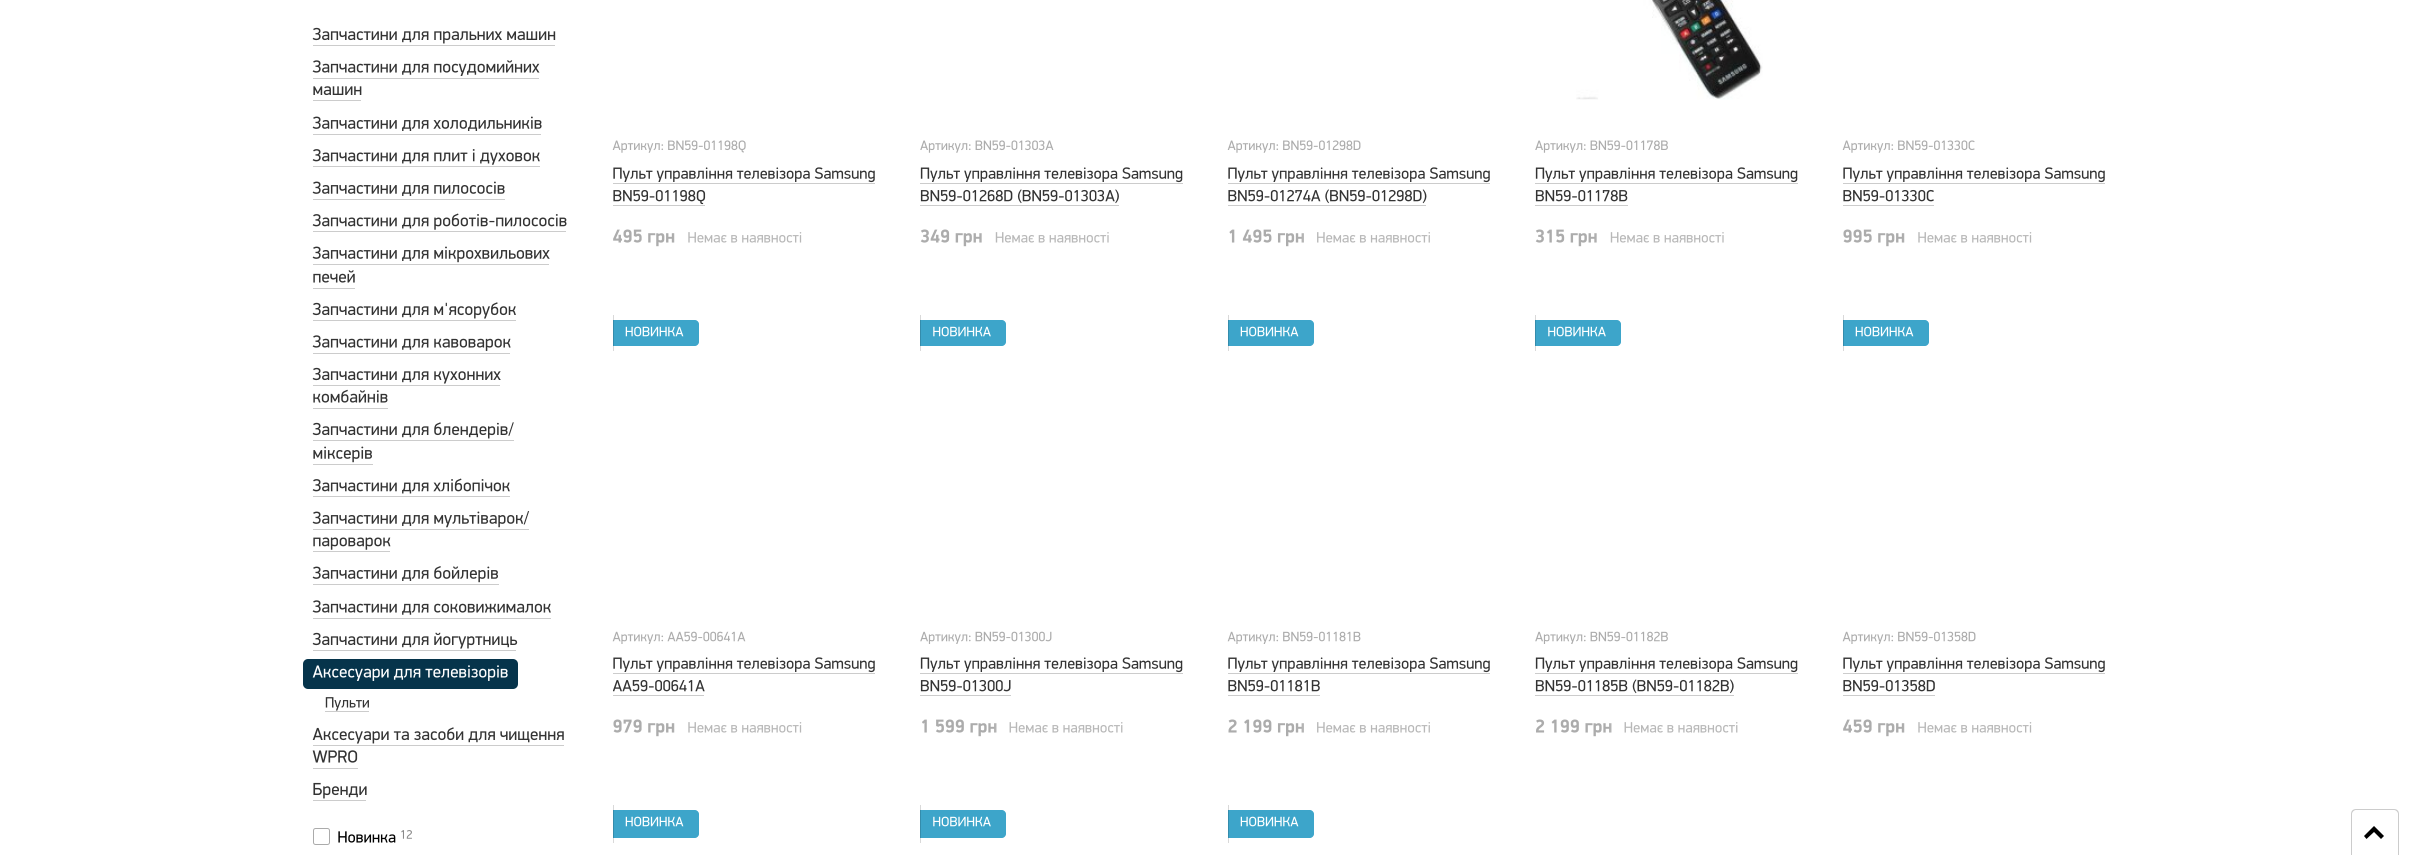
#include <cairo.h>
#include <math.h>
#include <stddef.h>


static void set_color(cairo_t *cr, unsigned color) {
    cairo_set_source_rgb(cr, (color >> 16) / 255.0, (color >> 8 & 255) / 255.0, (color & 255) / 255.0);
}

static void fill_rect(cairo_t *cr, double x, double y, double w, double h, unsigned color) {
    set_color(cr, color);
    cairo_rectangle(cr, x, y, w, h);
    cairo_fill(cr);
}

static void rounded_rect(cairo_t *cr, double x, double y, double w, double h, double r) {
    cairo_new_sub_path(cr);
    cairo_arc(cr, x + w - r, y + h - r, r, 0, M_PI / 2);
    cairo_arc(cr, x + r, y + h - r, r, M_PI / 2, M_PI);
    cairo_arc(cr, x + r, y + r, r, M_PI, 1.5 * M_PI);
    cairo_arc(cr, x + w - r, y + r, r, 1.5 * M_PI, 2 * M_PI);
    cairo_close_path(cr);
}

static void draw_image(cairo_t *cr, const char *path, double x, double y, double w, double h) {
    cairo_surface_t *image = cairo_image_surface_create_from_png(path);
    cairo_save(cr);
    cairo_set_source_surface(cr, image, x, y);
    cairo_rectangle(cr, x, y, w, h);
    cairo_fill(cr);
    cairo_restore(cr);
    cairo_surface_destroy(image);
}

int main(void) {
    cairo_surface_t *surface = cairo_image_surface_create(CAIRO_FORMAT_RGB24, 2423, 855);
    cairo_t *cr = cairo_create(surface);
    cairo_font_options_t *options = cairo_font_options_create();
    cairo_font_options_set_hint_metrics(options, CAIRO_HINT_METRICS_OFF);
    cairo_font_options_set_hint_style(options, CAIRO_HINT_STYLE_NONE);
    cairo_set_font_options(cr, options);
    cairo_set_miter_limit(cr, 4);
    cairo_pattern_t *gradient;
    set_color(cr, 0xFFFFFF);
    cairo_paint(cr);
    fill_rect(cr, 1228, 805, 1, 38, 0xD9D9D9);
    fill_rect(cr, 920, 805, 1, 38, 0xD9D9D9);
    fill_rect(cr, 613, 805, 1, 38, 0xD9D9D9);
    fill_rect(cr, 1843, 315, 1, 36, 0xD9D9D9);
    fill_rect(cr, 1535, 315, 1, 36, 0xD9D9D9);
    fill_rect(cr, 1228, 315, 1, 36, 0xD9D9D9);
    fill_rect(cr, 920, 315, 1, 36, 0xD9D9D9);
    fill_rect(cr, 613, 315, 1, 36, 0xD9D9D9);
    draw_image(cr, "assets/img1.png", 312, 27, 244, 17);
    fill_rect(cr, 313, 45, 242, 1, 0xCCCCCC);
    draw_image(cr, "assets/img2.png", 312, 60, 228, 16);
    fill_rect(cr, 313, 78, 226, 1, 0xCCCCCC);
    draw_image(cr, "assets/img3.png", 313, 86, 49, 10);
    fill_rect(cr, 313, 100, 48, 1, 0xCCCCCC);
    draw_image(cr, "assets/img4.png", 312, 116, 230, 15);
    fill_rect(cr, 313, 134, 228, 1, 0xCCCCCC);
    draw_image(cr, "assets/img5.png", 312, 149, 228, 16);
    fill_rect(cr, 313, 166, 227, 1, 0xCCCCCC);
    draw_image(cr, "assets/img6.png", 312, 181, 193, 15);
    fill_rect(cr, 313, 199, 192, 1, 0xCCCCCC);
    draw_image(cr, "assets/img7.png", 312, 213, 255, 17);
    fill_rect(cr, 313, 231, 253, 1, 0xCCCCCC);
    draw_image(cr, "assets/img8.png", 312, 246, 238, 17);
    fill_rect(cr, 313, 264, 236, 1, 0xCCCCCC);
    draw_image(cr, "assets/img9.png", 313, 270, 42, 13);
    fill_rect(cr, 313, 288, 42, 1, 0xCCCCCC);
    draw_image(cr, "assets/img10.png", 312, 302, 204, 17);
    fill_rect(cr, 313, 320, 203, 1, 0xCCCCCC);
    draw_image(cr, "assets/img11.png", 312, 335, 199, 16);
    fill_rect(cr, 313, 353, 197, 1, 0xCCCCCC);
    draw_image(cr, "assets/img12.png", 312, 367, 189, 17);
    fill_rect(cr, 313, 385, 187, 1, 0xCCCCCC);
    draw_image(cr, "assets/img13.png", 313, 389, 75, 14);
    fill_rect(cr, 313, 408, 75, 1, 0xCCCCCC);
    draw_image(cr, "assets/img14.png", 312, 422, 202, 17);
    fill_rect(cr, 313, 440, 201, 1, 0xCCCCCC);
    draw_image(cr, "assets/img15.png", 313, 446, 59, 17);
    fill_rect(cr, 313, 464, 60, 1, 0xCCCCCC);
    draw_image(cr, "assets/img16.png", 312, 478, 198, 16);
    fill_rect(cr, 313, 496, 197, 1, 0xCCCCCC);
    draw_image(cr, "assets/img17.png", 312, 511, 218, 17);
    fill_rect(cr, 313, 529, 216, 1, 0xCCCCCC);
    draw_image(cr, "assets/img18.png", 313, 537, 78, 13);
    fill_rect(cr, 313, 551, 77, 1, 0xCCCCCC);
    draw_image(cr, "assets/img19.png", 312, 566, 186, 17);
    fill_rect(cr, 313, 584, 186, 1, 0xCCCCCC);
    draw_image(cr, "assets/img20.png", 312, 600, 239, 15);
    fill_rect(cr, 313, 618, 238, 1, 0xCCCCCC);
    draw_image(cr, "assets/img21.png", 312, 632, 206, 17);
    fill_rect(cr, 313, 650, 203, 1, 0xCCCCCC);
    set_color(cr, 0x06344B);
    rounded_rect(cr, 303, 659, 215, 30, 5);
    cairo_fill(cr);
    draw_image(cr, "assets/img22.png", 312, 665, 196, 16);
    draw_image(cr, "assets/img23.png", 325, 697, 44, 14);
    fill_rect(cr, 325, 711, 44, 1, 0xCCCCCC);
    draw_image(cr, "assets/img24.png", 312, 727, 252, 17);
    fill_rect(cr, 313, 745, 251, 1, 0xCCCCCC);
    draw_image(cr, "assets/img25.png", 312, 750, 46, 13);
    fill_rect(cr, 313, 768, 45, 1, 0xCCCCCC);
    draw_image(cr, "assets/img26.png", 313, 782, 54, 17);
    fill_rect(cr, 313, 800, 53, 1, 0xCCCCCC);
    rounded_rect(cr, 313.5, 828.5, 16, 16, 2);
    set_color(cr, 0xABABAB);
    cairo_set_line_width(cr, 1);
    cairo_stroke(cr);
    draw_image(cr, "assets/img27.png", 338, 831, 58, 12);
    draw_image(cr, "assets/img28.png", 401, 830, 11, 9);
    draw_image(cr, "assets/img29.png", 612, 140, 134, 13);
    draw_image(cr, "assets/img30.png", 613, 167, 262, 16);
    fill_rect(cr, 613, 183, 262, 1, 0xCCCCCC);
    draw_image(cr, "assets/img31.png", 613, 190, 93, 15);
    fill_rect(cr, 613, 205, 92, 1, 0xCCCCCC);
    draw_image(cr, "assets/img32.png", 613, 229, 62, 18);
    gradient = cairo_pattern_create_linear(673, 239, 688, 239);
    cairo_pattern_add_color_stop_rgba(gradient, 0, 1, 1, 1, 0);
    cairo_pattern_add_color_stop_rgba(gradient, 1, 1, 1, 1, 1);
    cairo_set_source(cr, gradient);
    cairo_pattern_destroy(gradient);
    cairo_rectangle(cr, 673, 234, 1, 8);
    cairo_fill(cr);
    draw_image(cr, "assets/img33.png", 688, 232, 114, 11);
    draw_image(cr, "assets/img34.png", 920, 140, 134, 13);
    draw_image(cr, "assets/img35.png", 920, 167, 263, 16);
    fill_rect(cr, 920, 183, 263, 1, 0xCCCCCC);
    draw_image(cr, "assets/img36.png", 920, 189, 199, 15);
    fill_rect(cr, 920, 205, 199, 1, 0xCCCCCC);
    draw_image(cr, "assets/img37.png", 920, 229, 62, 18);
    gradient = cairo_pattern_create_linear(980, 239, 995, 239);
    cairo_pattern_add_color_stop_rgba(gradient, 0, 1, 1, 1, 0);
    cairo_pattern_add_color_stop_rgba(gradient, 1, 1, 1, 1, 1);
    cairo_set_source(cr, gradient);
    cairo_pattern_destroy(gradient);
    cairo_rectangle(cr, 980, 233, 2, 10);
    cairo_fill(cr);
    draw_image(cr, "assets/img38.png", 995, 232, 114, 11);
    draw_image(cr, "assets/img39.png", 1227, 140, 134, 13);
    draw_image(cr, "assets/img30.png", 1228, 167, 262, 16);
    fill_rect(cr, 1228, 183, 262, 1, 0xCCCCCC);
    draw_image(cr, "assets/img40.png", 1228, 189, 199, 15);
    fill_rect(cr, 1228, 205, 198, 1, 0xCCCCCC);
    draw_image(cr, "assets/img41.png", 1229, 229, 75, 18);
    gradient = cairo_pattern_create_linear(1301, 239, 1316, 239);
    cairo_pattern_add_color_stop_rgba(gradient, 0, 1, 1, 1, 0);
    cairo_pattern_add_color_stop_rgba(gradient, 1, 1, 1, 1, 1);
    cairo_set_source(cr, gradient);
    cairo_pattern_destroy(gradient);
    cairo_rectangle(cr, 1301, 233, 3, 10);
    cairo_fill(cr);
    draw_image(cr, "assets/img42.png", 1317, 232, 113, 11);
    draw_image(cr, "assets/img43.png", 1576, 0, 187, 100);
    draw_image(cr, "assets/img44.png", 1535, 140, 133, 13);
    draw_image(cr, "assets/img35.png", 1535, 167, 263, 16);
    fill_rect(cr, 1535, 183, 263, 1, 0xCCCCCC);
    draw_image(cr, "assets/img45.png", 1535, 190, 93, 12);
    fill_rect(cr, 1535, 205, 93, 1, 0xCCCCCC);
    draw_image(cr, "assets/img46.png", 1535, 229, 62, 18);
    gradient = cairo_pattern_create_linear(1595, 239, 1610, 239);
    cairo_pattern_add_color_stop_rgba(gradient, 0, 1, 1, 1, 0);
    cairo_pattern_add_color_stop_rgba(gradient, 1, 1, 1, 1, 1);
    cairo_set_source(cr, gradient);
    cairo_pattern_destroy(gradient);
    cairo_rectangle(cr, 1595, 233, 2, 10);
    cairo_fill(cr);
    draw_image(cr, "assets/img38.png", 1610, 232, 114, 11);
    draw_image(cr, "assets/img47.png", 1842, 140, 133, 13);
    draw_image(cr, "assets/img30.png", 1843, 167, 262, 16);
    fill_rect(cr, 1843, 183, 262, 1, 0xCCCCCC);
    draw_image(cr, "assets/img48.png", 1843, 189, 91, 13);
    fill_rect(cr, 1843, 205, 91, 1, 0xCCCCCC);
    draw_image(cr, "assets/img49.png", 1843, 229, 62, 18);
    gradient = cairo_pattern_create_linear(1903, 239, 1918, 239);
    cairo_pattern_add_color_stop_rgba(gradient, 0, 1, 1, 1, 0);
    cairo_pattern_add_color_stop_rgba(gradient, 1, 1, 1, 1, 1);
    cairo_set_source(cr, gradient);
    cairo_pattern_destroy(gradient);
    cairo_rectangle(cr, 1903, 234, 1, 8);
    cairo_fill(cr);
    draw_image(cr, "assets/img33.png", 1918, 232, 114, 11);
    set_color(cr, 0x3DA5CA);
    cairo_new_path(cr);
    cairo_move_to(cr, 613, 320);
    cairo_line_to(cr, 695, 320);
    cairo_curve_to(cr, 697, 320, 699, 322, 699, 324);
    cairo_line_to(cr, 699, 342);
    cairo_curve_to(cr, 699, 344, 697, 346, 695, 346);
    cairo_line_to(cr, 613, 346);
    cairo_close_path(cr);
    cairo_fill(cr);
    fill_rect(cr, 613, 320, 1, 26, 0x348CAC);
    draw_image(cr, "assets/img50.png", 625, 326, 59, 11);
    draw_image(cr, "assets/img51.png", 612, 631, 134, 13);
    draw_image(cr, "assets/img30.png", 613, 657, 262, 16);
    fill_rect(cr, 613, 673, 262, 1, 0xCCCCCC);
    draw_image(cr, "assets/img52.png", 613, 680, 92, 12);
    fill_rect(cr, 613, 695, 91, 1, 0xCCCCCC);
    draw_image(cr, "assets/img53.png", 613, 719, 62, 18);
    gradient = cairo_pattern_create_linear(673, 729, 688, 729);
    cairo_pattern_add_color_stop_rgba(gradient, 0, 1, 1, 1, 0);
    cairo_pattern_add_color_stop_rgba(gradient, 1, 1, 1, 1, 1);
    cairo_set_source(cr, gradient);
    cairo_pattern_destroy(gradient);
    cairo_rectangle(cr, 673, 724, 1, 8);
    cairo_fill(cr);
    draw_image(cr, "assets/img33.png", 688, 722, 114, 11);
    set_color(cr, 0x3DA5CA);
    cairo_new_path(cr);
    cairo_move_to(cr, 920, 320);
    cairo_line_to(cr, 1002, 320);
    cairo_curve_to(cr, 1004, 320, 1006, 322, 1006, 324);
    cairo_line_to(cr, 1006, 342);
    cairo_curve_to(cr, 1006, 344, 1004, 346, 1002, 346);
    cairo_line_to(cr, 920, 346);
    cairo_close_path(cr);
    cairo_fill(cr);
    fill_rect(cr, 920, 320, 1, 26, 0x348CAC);
    draw_image(cr, "assets/img54.png", 933, 326, 58, 11);
    draw_image(cr, "assets/img55.png", 920, 631, 132, 13);
    draw_image(cr, "assets/img35.png", 920, 657, 263, 16);
    fill_rect(cr, 920, 673, 263, 1, 0xCCCCCC);
    draw_image(cr, "assets/img56.png", 920, 680, 91, 12);
    fill_rect(cr, 920, 695, 91, 1, 0xCCCCCC);
    draw_image(cr, "assets/img57.png", 922, 719, 75, 18);
    gradient = cairo_pattern_create_linear(994, 729, 1009, 729);
    cairo_pattern_add_color_stop_rgba(gradient, 0, 1, 1, 1, 0);
    cairo_pattern_add_color_stop_rgba(gradient, 1, 1, 1, 1, 1);
    cairo_set_source(cr, gradient);
    cairo_pattern_destroy(gradient);
    cairo_rectangle(cr, 994, 723, 3, 10);
    cairo_fill(cr);
    draw_image(cr, "assets/img58.png", 1009, 722, 114, 11);
    set_color(cr, 0x3DA5CA);
    cairo_new_path(cr);
    cairo_move_to(cr, 1228, 320);
    cairo_line_to(cr, 1310, 320);
    cairo_curve_to(cr, 1312, 320, 1314, 322, 1314, 324);
    cairo_line_to(cr, 1314, 342);
    cairo_curve_to(cr, 1314, 344, 1312, 346, 1310, 346);
    cairo_line_to(cr, 1228, 346);
    cairo_close_path(cr);
    cairo_fill(cr);
    fill_rect(cr, 1228, 320, 1, 26, 0x348CAC);
    draw_image(cr, "assets/img50.png", 1240, 326, 59, 11);
    draw_image(cr, "assets/img59.png", 1227, 631, 134, 13);
    draw_image(cr, "assets/img30.png", 1228, 657, 262, 16);
    fill_rect(cr, 1228, 673, 262, 1, 0xCCCCCC);
    draw_image(cr, "assets/img60.png", 1228, 680, 92, 12);
    fill_rect(cr, 1228, 695, 92, 1, 0xCCCCCC);
    draw_image(cr, "assets/img61.png", 1228, 719, 76, 18);
    gradient = cairo_pattern_create_linear(1301, 729, 1316, 729);
    cairo_pattern_add_color_stop_rgba(gradient, 0, 1, 1, 1, 0);
    cairo_pattern_add_color_stop_rgba(gradient, 1, 1, 1, 1, 1);
    cairo_set_source(cr, gradient);
    cairo_pattern_destroy(gradient);
    cairo_rectangle(cr, 1301, 723, 3, 10);
    cairo_fill(cr);
    draw_image(cr, "assets/img42.png", 1317, 722, 113, 11);
    set_color(cr, 0x3DA5CA);
    cairo_new_path(cr);
    cairo_move_to(cr, 1535, 320);
    cairo_line_to(cr, 1617, 320);
    cairo_curve_to(cr, 1619, 320, 1621, 322, 1621, 324);
    cairo_line_to(cr, 1621, 342);
    cairo_curve_to(cr, 1621, 344, 1619, 346, 1617, 346);
    cairo_line_to(cr, 1535, 346);
    cairo_close_path(cr);
    cairo_fill(cr);
    fill_rect(cr, 1535, 320, 1, 26, 0x348CAC);
    draw_image(cr, "assets/img54.png", 1548, 326, 58, 11);
    draw_image(cr, "assets/img62.png", 1535, 631, 133, 13);
    draw_image(cr, "assets/img35.png", 1535, 657, 263, 16);
    fill_rect(cr, 1535, 673, 263, 1, 0xCCCCCC);
    draw_image(cr, "assets/img63.png", 1535, 679, 199, 15);
    fill_rect(cr, 1535, 695, 199, 1, 0xCCCCCC);
    draw_image(cr, "assets/img64.png", 1536, 719, 76, 18);
    gradient = cairo_pattern_create_linear(1609, 729, 1624, 729);
    cairo_pattern_add_color_stop_rgba(gradient, 0, 1, 1, 1, 0);
    cairo_pattern_add_color_stop_rgba(gradient, 1, 1, 1, 1, 1);
    cairo_set_source(cr, gradient);
    cairo_pattern_destroy(gradient);
    cairo_rectangle(cr, 1609, 723, 3, 10);
    cairo_fill(cr);
    draw_image(cr, "assets/img58.png", 1624, 722, 114, 11);
    set_color(cr, 0x3DA5CA);
    cairo_new_path(cr);
    cairo_move_to(cr, 1843, 320);
    cairo_line_to(cr, 1925, 320);
    cairo_curve_to(cr, 1927, 320, 1929, 322, 1929, 324);
    cairo_line_to(cr, 1929, 342);
    cairo_curve_to(cr, 1929, 344, 1927, 346, 1925, 346);
    cairo_line_to(cr, 1843, 346);
    cairo_close_path(cr);
    cairo_fill(cr);
    fill_rect(cr, 1843, 320, 1, 26, 0x348CAC);
    draw_image(cr, "assets/img50.png", 1855, 326, 59, 11);
    draw_image(cr, "assets/img65.png", 1842, 631, 134, 13);
    draw_image(cr, "assets/img30.png", 1843, 657, 262, 16);
    fill_rect(cr, 1843, 673, 262, 1, 0xCCCCCC);
    draw_image(cr, "assets/img66.png", 1843, 680, 92, 12);
    fill_rect(cr, 1843, 695, 92, 1, 0xCCCCCC);
    draw_image(cr, "assets/img67.png", 1843, 719, 62, 18);
    gradient = cairo_pattern_create_linear(1903, 729, 1918, 729);
    cairo_pattern_add_color_stop_rgba(gradient, 0, 1, 1, 1, 0);
    cairo_pattern_add_color_stop_rgba(gradient, 1, 1, 1, 1, 1);
    cairo_set_source(cr, gradient);
    cairo_pattern_destroy(gradient);
    cairo_rectangle(cr, 1903, 724, 1, 8);
    cairo_fill(cr);
    draw_image(cr, "assets/img33.png", 1918, 722, 114, 11);
    set_color(cr, 0x3DA5CA);
    cairo_new_path(cr);
    cairo_move_to(cr, 613, 810);
    cairo_line_to(cr, 695, 810);
    cairo_curve_to(cr, 697, 810, 699, 812, 699, 814);
    cairo_line_to(cr, 699, 834);
    cairo_curve_to(cr, 699, 836, 697, 838, 695, 838);
    cairo_line_to(cr, 613, 838);
    cairo_close_path(cr);
    cairo_fill(cr);
    fill_rect(cr, 613, 810, 1, 28, 0x348CAC);
    draw_image(cr, "assets/img50.png", 625, 816, 59, 11);
    set_color(cr, 0x3DA5CA);
    cairo_new_path(cr);
    cairo_move_to(cr, 920, 810);
    cairo_line_to(cr, 1002, 810);
    cairo_curve_to(cr, 1004, 810, 1006, 812, 1006, 814);
    cairo_line_to(cr, 1006, 834);
    cairo_curve_to(cr, 1006, 836, 1004, 838, 1002, 838);
    cairo_line_to(cr, 920, 838);
    cairo_close_path(cr);
    cairo_fill(cr);
    fill_rect(cr, 920, 810, 1, 28, 0x348CAC);
    draw_image(cr, "assets/img54.png", 933, 816, 58, 11);
    set_color(cr, 0x3DA5CA);
    cairo_new_path(cr);
    cairo_move_to(cr, 1228, 810);
    cairo_line_to(cr, 1310, 810);
    cairo_curve_to(cr, 1312, 810, 1314, 812, 1314, 814);
    cairo_line_to(cr, 1314, 834);
    cairo_curve_to(cr, 1314, 836, 1312, 838, 1310, 838);
    cairo_line_to(cr, 1228, 838);
    cairo_close_path(cr);
    cairo_fill(cr);
    fill_rect(cr, 1228, 810, 1, 28, 0x348CAC);
    draw_image(cr, "assets/img50.png", 1240, 816, 59, 11);
    set_color(cr, 0xCCCCCC);
    cairo_set_fill_rule(cr, CAIRO_FILL_RULE_EVEN_ODD);
    cairo_new_path(cr);
    cairo_move_to(cr, 2356, 809);
    cairo_line_to(cr, 2394, 809);
    cairo_curve_to(cr, 2397, 809, 2399, 811, 2399, 814);
    cairo_line_to(cr, 2399, 855);
    cairo_line_to(cr, 2351, 855);
    cairo_line_to(cr, 2351, 814);
    cairo_curve_to(cr, 2351, 811, 2353, 809, 2356, 809);
    cairo_close_path(cr);
    cairo_move_to(cr, 2356, 810);
    cairo_line_to(cr, 2394, 810);
    cairo_curve_to(cr, 2396, 810, 2398, 812, 2398, 814);
    cairo_line_to(cr, 2398, 855);
    cairo_line_to(cr, 2352, 855);
    cairo_line_to(cr, 2352, 814);
    cairo_curve_to(cr, 2352, 812, 2354, 810, 2356, 810);
    cairo_close_path(cr);
    cairo_fill(cr);
    set_color(cr, 0x000000);
    cairo_set_fill_rule(cr, CAIRO_FILL_RULE_WINDING);
    cairo_new_path(cr);
    cairo_move_to(cr, 2374, 832);
    cairo_line_to(cr, 2366.5, 839);
    cairo_line_to(cr, 2364, 836);
    cairo_line_to(cr, 2374, 826);
    cairo_line_to(cr, 2384, 836);
    cairo_line_to(cr, 2381, 839);
    cairo_close_path(cr);
    cairo_fill(cr);
    cairo_surface_write_to_png(surface, "output.png");
    cairo_font_options_destroy(options);
    cairo_destroy(cr);
    cairo_surface_destroy(surface);
    return 0;
}
